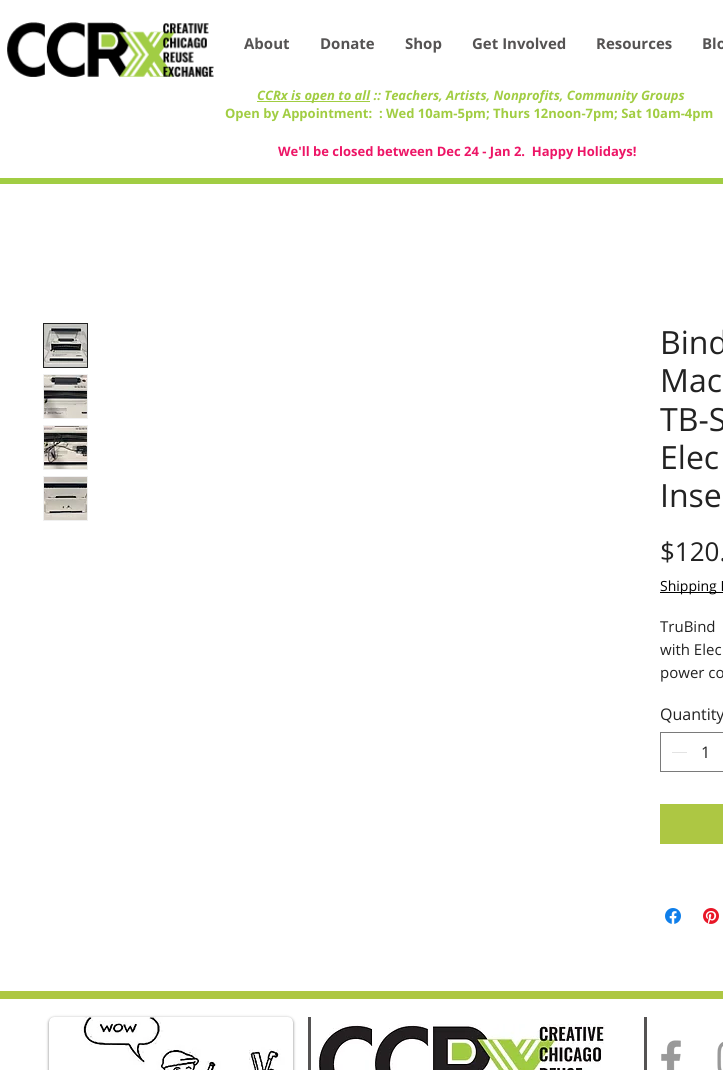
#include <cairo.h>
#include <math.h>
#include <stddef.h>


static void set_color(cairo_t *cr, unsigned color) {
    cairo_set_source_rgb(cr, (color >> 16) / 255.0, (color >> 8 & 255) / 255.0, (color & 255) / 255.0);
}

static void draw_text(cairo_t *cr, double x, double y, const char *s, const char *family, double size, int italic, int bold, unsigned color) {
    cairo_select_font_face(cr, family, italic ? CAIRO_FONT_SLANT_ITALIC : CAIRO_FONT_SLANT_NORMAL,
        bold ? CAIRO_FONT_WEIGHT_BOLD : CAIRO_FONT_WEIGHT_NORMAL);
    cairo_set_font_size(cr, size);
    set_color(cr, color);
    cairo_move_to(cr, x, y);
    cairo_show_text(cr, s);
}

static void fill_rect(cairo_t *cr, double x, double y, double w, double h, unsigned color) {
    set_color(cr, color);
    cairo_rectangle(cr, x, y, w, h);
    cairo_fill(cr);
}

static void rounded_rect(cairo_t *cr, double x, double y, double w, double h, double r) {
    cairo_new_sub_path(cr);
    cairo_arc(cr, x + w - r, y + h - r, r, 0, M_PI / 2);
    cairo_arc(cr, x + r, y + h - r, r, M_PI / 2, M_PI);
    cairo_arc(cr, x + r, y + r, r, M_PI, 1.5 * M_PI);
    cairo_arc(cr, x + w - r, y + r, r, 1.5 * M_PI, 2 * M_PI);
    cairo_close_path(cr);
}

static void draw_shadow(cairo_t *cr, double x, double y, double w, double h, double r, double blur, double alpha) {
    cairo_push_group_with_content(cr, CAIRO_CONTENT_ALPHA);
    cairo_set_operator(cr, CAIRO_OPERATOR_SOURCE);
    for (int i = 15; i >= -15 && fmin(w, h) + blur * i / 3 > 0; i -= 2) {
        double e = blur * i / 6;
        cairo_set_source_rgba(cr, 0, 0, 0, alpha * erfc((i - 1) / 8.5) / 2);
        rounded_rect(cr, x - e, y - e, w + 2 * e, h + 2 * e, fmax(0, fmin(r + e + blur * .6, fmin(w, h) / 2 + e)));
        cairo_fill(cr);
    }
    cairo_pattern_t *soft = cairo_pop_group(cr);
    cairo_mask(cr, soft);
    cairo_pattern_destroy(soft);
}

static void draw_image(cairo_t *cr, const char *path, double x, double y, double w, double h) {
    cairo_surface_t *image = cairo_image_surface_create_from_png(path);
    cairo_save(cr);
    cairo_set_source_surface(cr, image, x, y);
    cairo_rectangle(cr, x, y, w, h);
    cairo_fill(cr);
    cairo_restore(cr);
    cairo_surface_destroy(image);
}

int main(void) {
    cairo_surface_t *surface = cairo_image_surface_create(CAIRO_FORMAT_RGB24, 723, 1070);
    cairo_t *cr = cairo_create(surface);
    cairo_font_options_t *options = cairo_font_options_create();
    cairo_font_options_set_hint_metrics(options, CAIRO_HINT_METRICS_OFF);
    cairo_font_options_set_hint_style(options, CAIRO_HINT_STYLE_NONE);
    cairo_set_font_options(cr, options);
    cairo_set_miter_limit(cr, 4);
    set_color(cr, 0xFFFFFF);
    cairo_paint(cr);
    draw_image(cr, "assets/img1.png", 7, 22, 207, 55);
    draw_text(cr, 244, 49, "About", "Open Sans", 15, 0, 1, 0x555353);
    draw_text(cr, 320, 49, "Donate", "Open Sans", 15, 0, 1, 0x555353);
    draw_text(cr, 405, 49, "Shop", "Open Sans", 15, 0, 1, 0x555353);
    draw_text(cr, 472, 49, "Get Involved", "Open Sans", 15, 0, 1, 0x555353);
    draw_text(cr, 596, 49, "Resources", "Open Sans", 15, 0, 1, 0x555353);
    draw_text(cr, 702, 49, "Blo", "Open Sans", 15, 0, 1, 0x555353);
    fill_rect(cr, 257, 101, 113, 1, 0xA1CD42);
    draw_text(cr, 257, 100, "CCRx is open to all :: Teachers, Artists, Nonprofits, Community Groups", "Open Sans", 13, 1, 1, 0xA1CD42);
    draw_text(cr, 225, 118, "Open by Appointment:  : Wed 10am-5pm; Thurs 12noon-7pm; Sat 10am-4pm", "Open Sans", 13, 0, 1, 0xA1CD42);
    draw_text(cr, 278, 156, "We'll be closed between Dec 24 - Jan 2.  Happy Holidays!", "Open Sans", 13, 0, 1, 0xED1566);
    fill_rect(cr, 0, 178, 723, 6, 0xA1CD43);
    cairo_rectangle(cr, 43.5, 323.5, 44, 44);
    set_color(cr, 0x222222);
    cairo_set_line_width(cr, 1);
    cairo_stroke(cr);
    draw_image(cr, "assets/img2.png", 44, 324, 43, 43);
    fill_rect(cr, 43, 374, 45, 45, 0xF0F0F0);
    draw_image(cr, "assets/img3.png", 44, 375, 43, 43);
    fill_rect(cr, 43, 425, 45, 45, 0xF0F0F0);
    draw_image(cr, "assets/img4.png", 44, 426, 43, 43);
    fill_rect(cr, 43, 476, 45, 45, 0xF0F0F0);
    draw_image(cr, "assets/img5.png", 44, 477, 43, 43);
    draw_text(cr, 660, 354, "Bind", "Open Sans", 32, 0, 0, 0x222222);
    draw_text(cr, 660, 392, "Mac", "Open Sans", 32, 0, 0, 0x222222);
    draw_text(cr, 660, 431, "TB-S", "Open Sans", 32, 0, 0, 0x222222);
    draw_text(cr, 660, 469, "Elec", "Open Sans", 32, 0, 0, 0x222222);
    draw_text(cr, 660, 507, "Inse", "Open Sans", 32, 0, 0, 0x222222);
    draw_text(cr, 660, 561, "$120.", "Open Sans", 26, 0, 0, 0x222222);
    fill_rect(cr, 660, 592, 63, 1, 0x000000);
    draw_text(cr, 660, 591, "Shipping I", "Open Sans", 14, 0, 0, 0x000000);
    draw_text(cr, 660, 632, "TruBind", "Open Sans", 15, 0, 0, 0x222222);
    draw_text(cr, 660, 655, "with Elec", "Open Sans", 15, 0, 0, 0x222222);
    draw_text(cr, 660, 678, "power co", "Open Sans", 15, 0, 0, 0x222222);
    draw_text(cr, 660, 720, "Quantity", "Open Sans", 16, 0, 0, 0x222222);
    cairo_rectangle(cr, 660.5, 732.5, 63, 39);
    set_color(cr, 0x7A7A7A);
    cairo_stroke(cr);
    fill_rect(cr, 672, 752, 15, 1, 0xE3E3E3);
    draw_text(cr, 701, 758, "1", "Open Sans", 16, 0, 0, 0x222222);
    fill_rect(cr, 660, 804, 63, 40, 0xADC743);
    draw_image(cr, "assets/img6.png", 665, 908, 16, 16);
    draw_image(cr, "assets/img7.png", 703, 908, 16, 16);
    fill_rect(cr, 0, 991, 723, 8, 0xADC743);
    set_color(cr, 0x000000);
    draw_shadow(cr, 49, 1018, 244, 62, 5, 1.5, 0.5);
    draw_image(cr, "assets/img8.png", 49, 1017, 244, 53);
    fill_rect(cr, 308, 1017, 3, 53, 0x555353);
    draw_image(cr, "assets/img9.png", 317, 1024, 288, 46);
    fill_rect(cr, 644, 1017, 3, 53, 0x555353);
    draw_image(cr, "assets/img10.png", 661, 1040, 20, 30);
    draw_image(cr, "assets/img11.png", 717, 1042, 6, 28);
    cairo_surface_write_to_png(surface, "output.png");
    cairo_font_options_destroy(options);
    cairo_destroy(cr);
    cairo_surface_destroy(surface);
    return 0;
}
